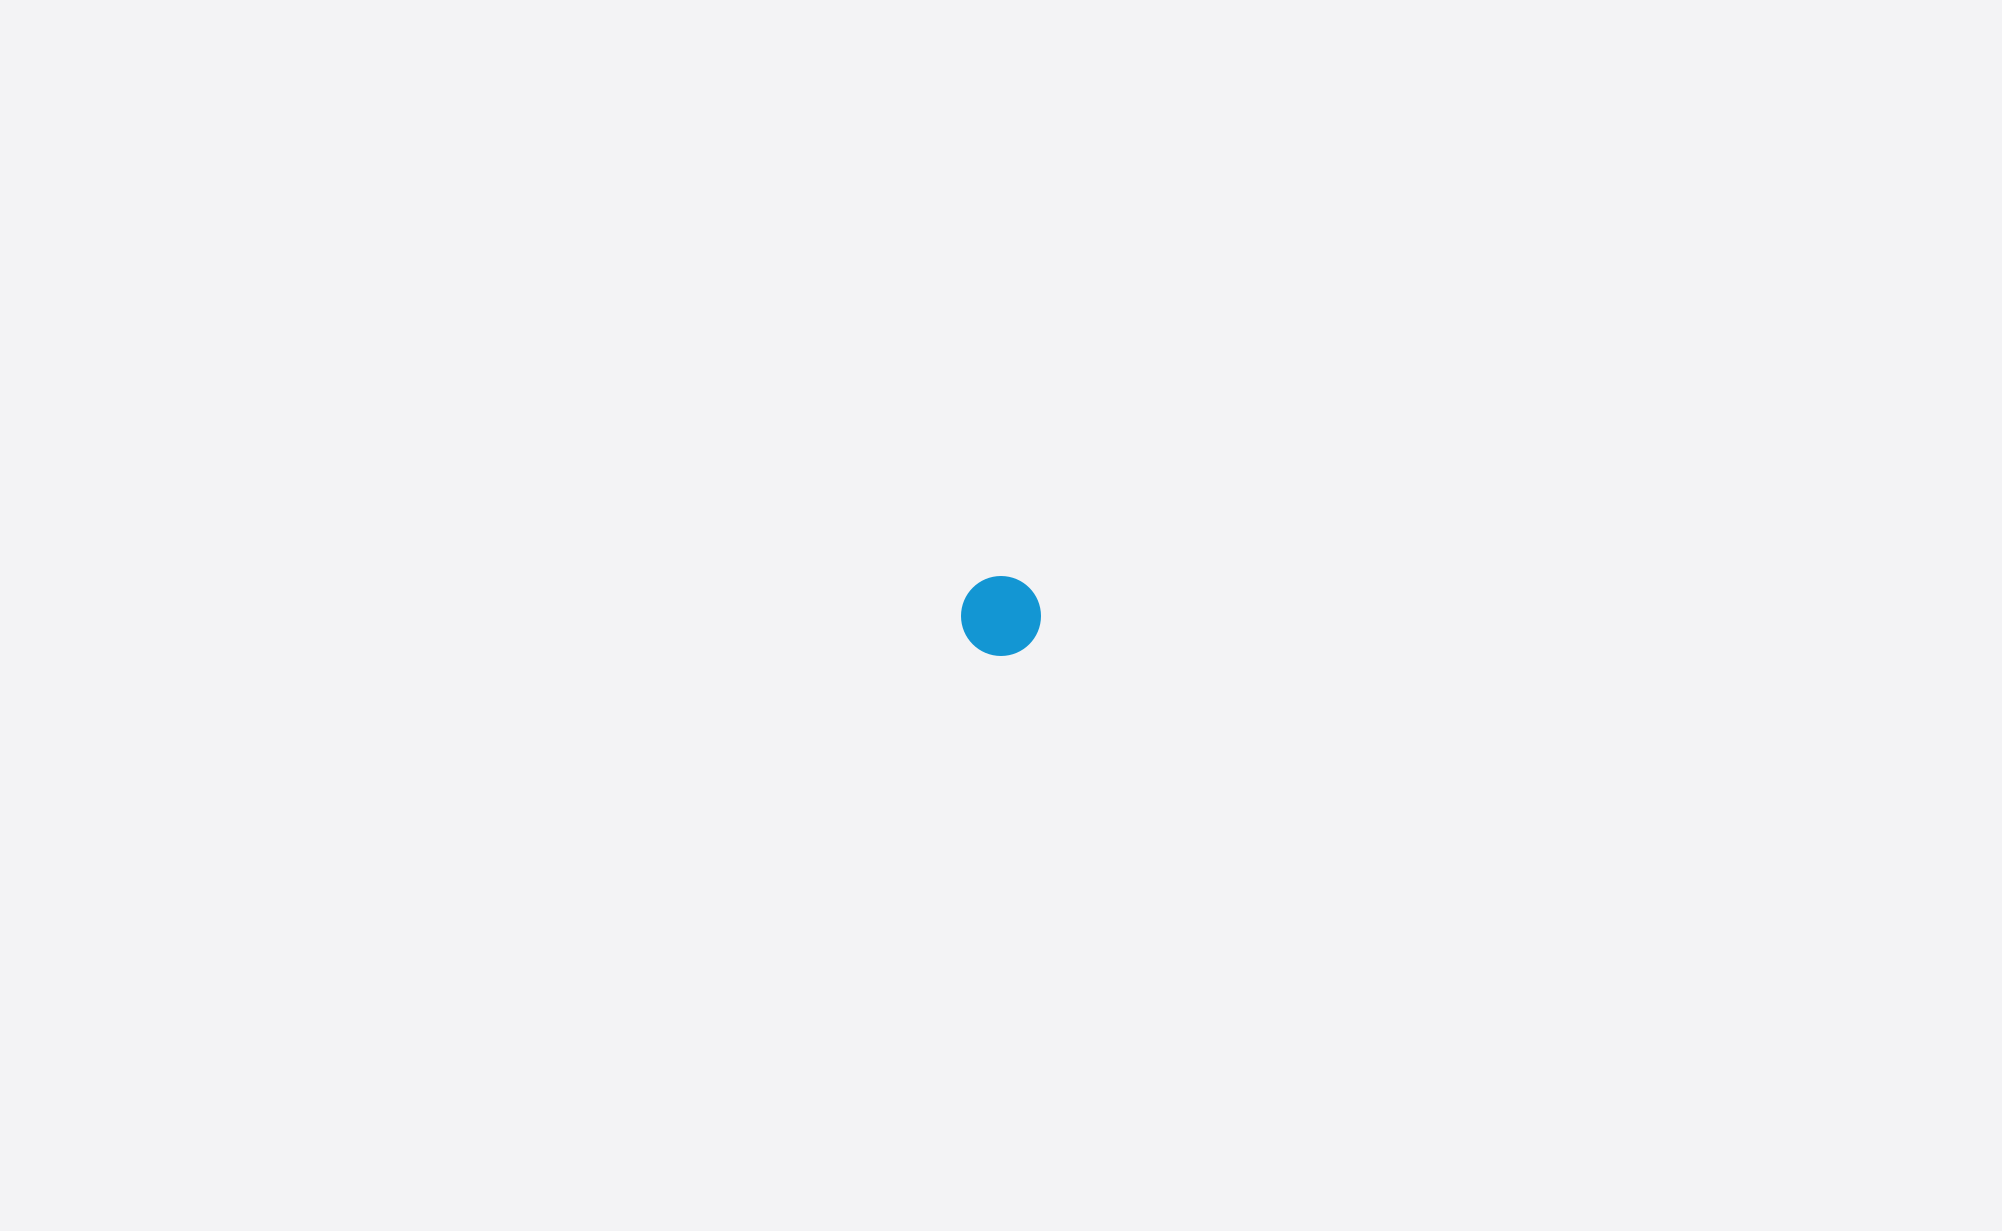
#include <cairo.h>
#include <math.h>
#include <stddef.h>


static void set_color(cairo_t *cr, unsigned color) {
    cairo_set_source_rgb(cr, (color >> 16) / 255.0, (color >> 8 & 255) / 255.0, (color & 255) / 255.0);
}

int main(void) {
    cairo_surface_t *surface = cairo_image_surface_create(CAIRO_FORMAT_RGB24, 2002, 1231);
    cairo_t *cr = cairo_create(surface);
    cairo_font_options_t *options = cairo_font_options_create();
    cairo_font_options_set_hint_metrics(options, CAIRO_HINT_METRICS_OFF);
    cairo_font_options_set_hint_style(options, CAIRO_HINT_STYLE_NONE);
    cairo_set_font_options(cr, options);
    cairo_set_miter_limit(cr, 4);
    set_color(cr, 0xF3F3F5);
    cairo_paint(cr);
    set_color(cr, 0x1396D3);
    cairo_arc(cr, 1001, 616, 40, 0, 2 * M_PI);
    cairo_fill(cr);
    cairo_surface_write_to_png(surface, "output.png");
    cairo_font_options_destroy(options);
    cairo_destroy(cr);
    cairo_surface_destroy(surface);
    return 0;
}
